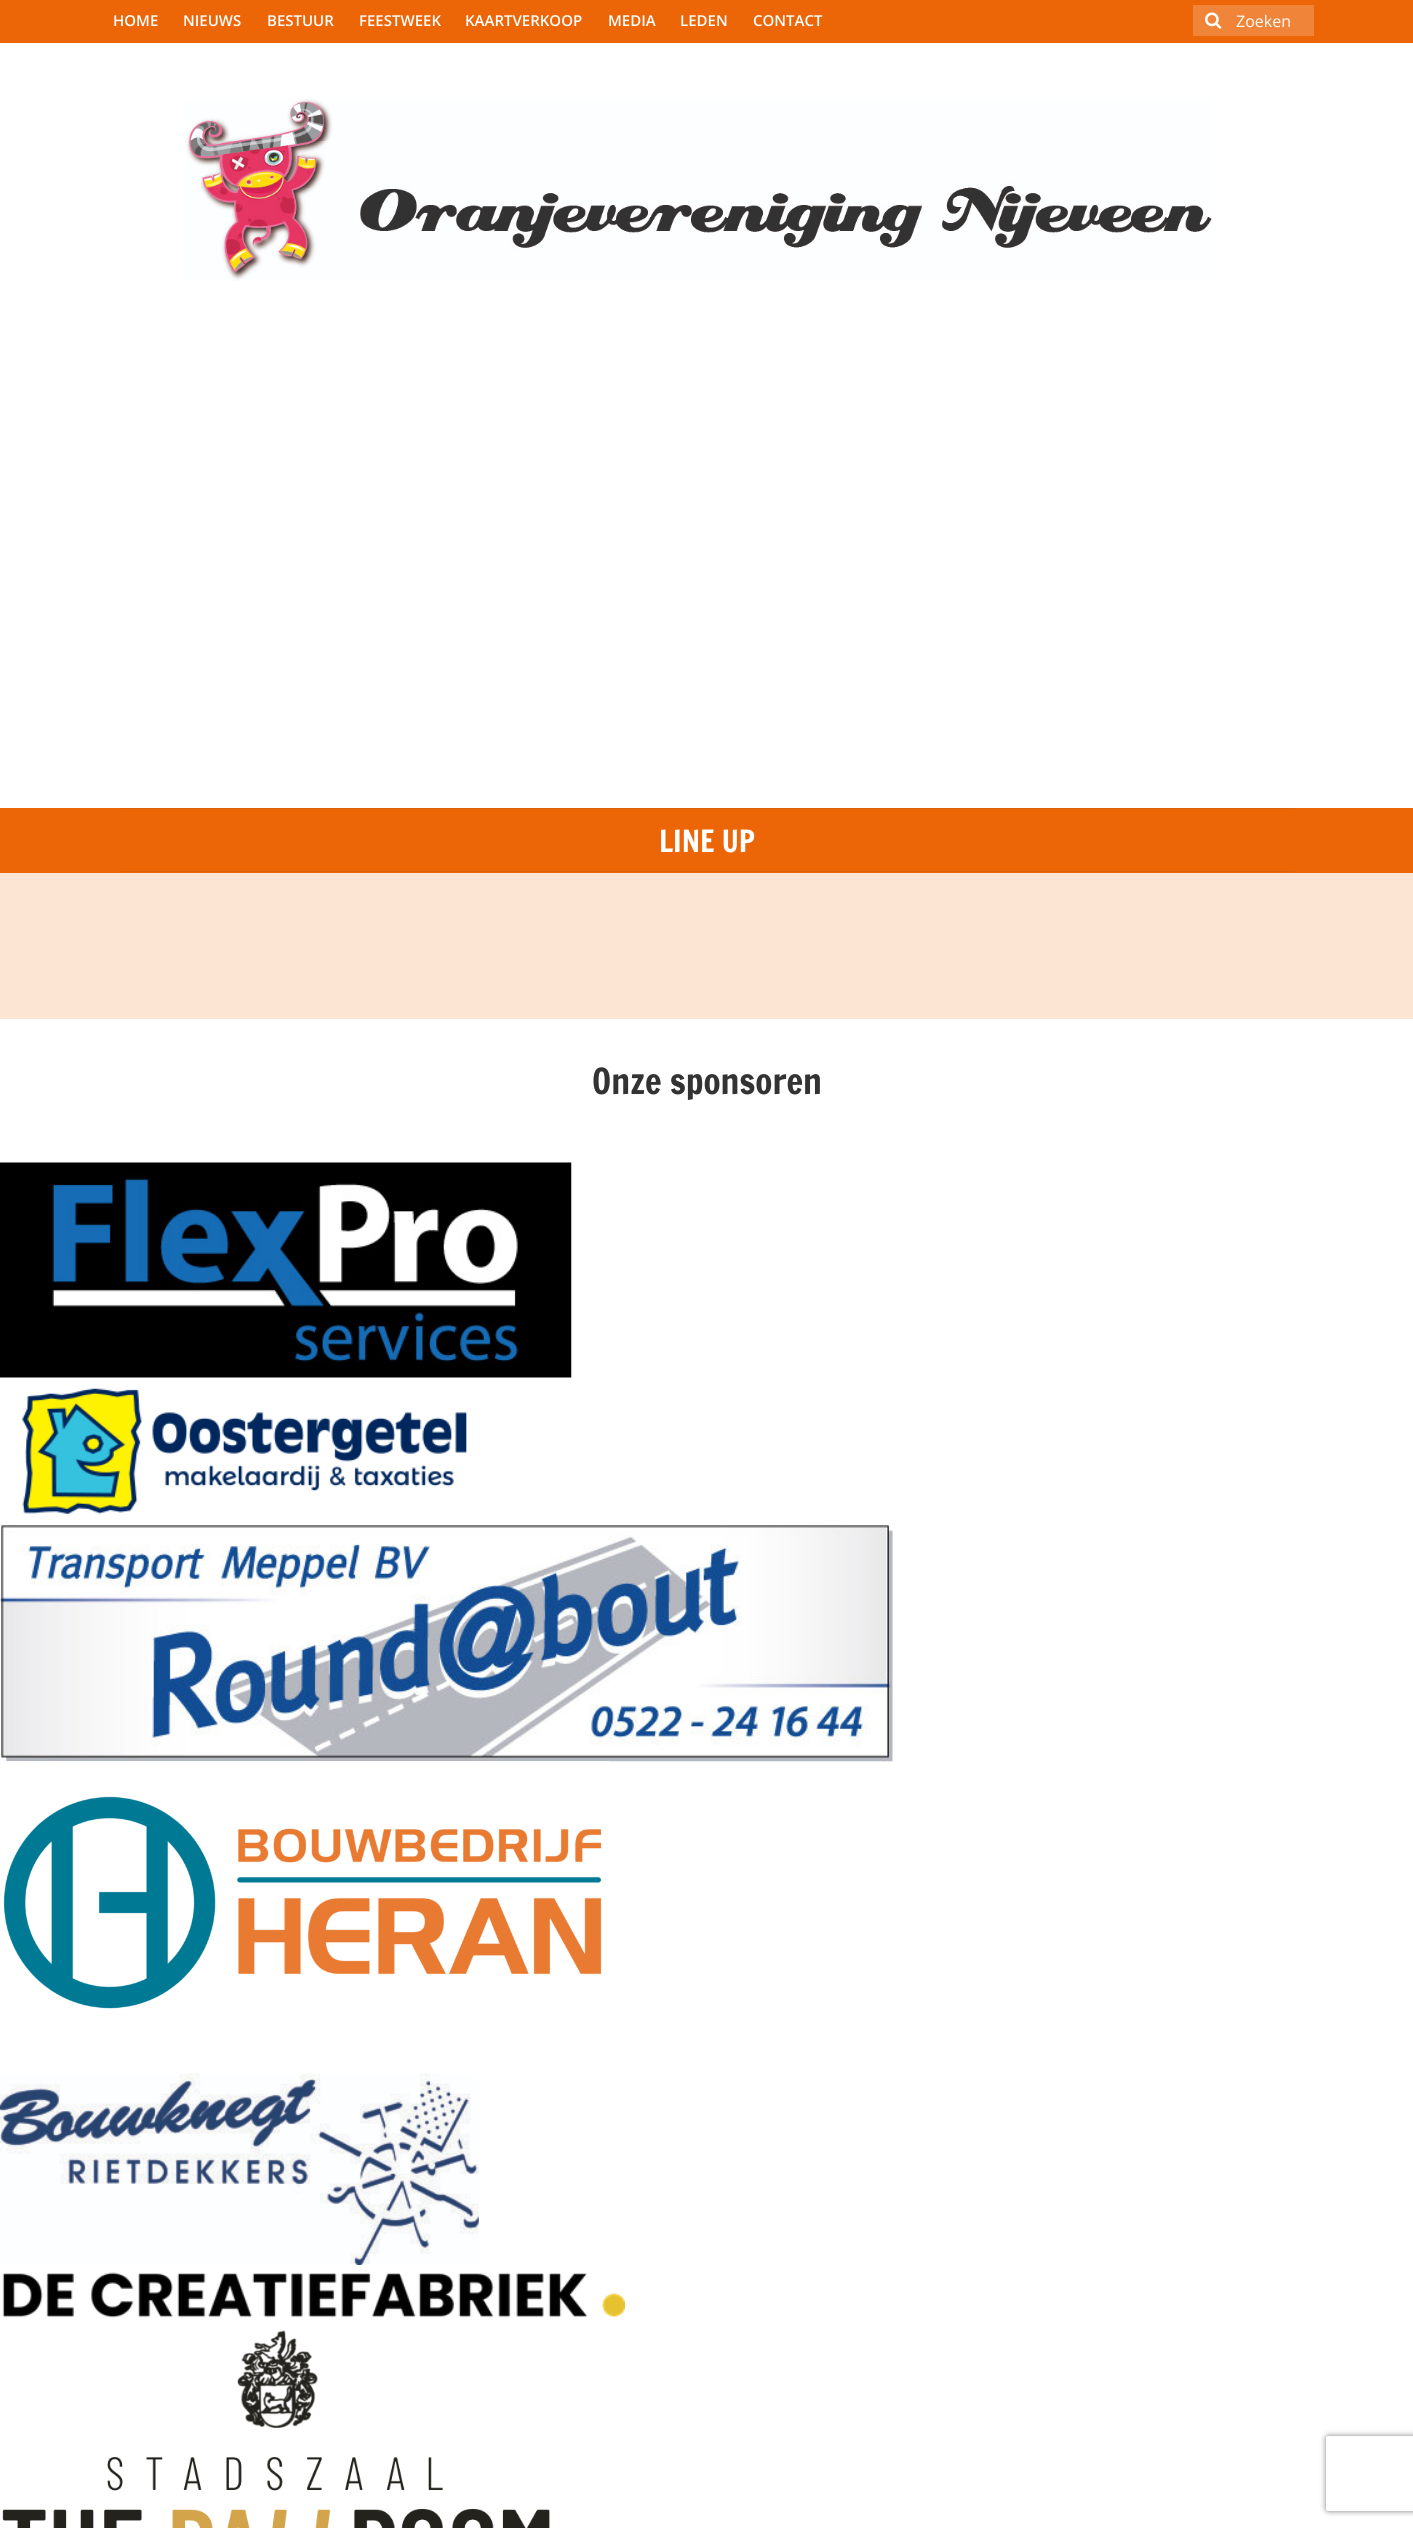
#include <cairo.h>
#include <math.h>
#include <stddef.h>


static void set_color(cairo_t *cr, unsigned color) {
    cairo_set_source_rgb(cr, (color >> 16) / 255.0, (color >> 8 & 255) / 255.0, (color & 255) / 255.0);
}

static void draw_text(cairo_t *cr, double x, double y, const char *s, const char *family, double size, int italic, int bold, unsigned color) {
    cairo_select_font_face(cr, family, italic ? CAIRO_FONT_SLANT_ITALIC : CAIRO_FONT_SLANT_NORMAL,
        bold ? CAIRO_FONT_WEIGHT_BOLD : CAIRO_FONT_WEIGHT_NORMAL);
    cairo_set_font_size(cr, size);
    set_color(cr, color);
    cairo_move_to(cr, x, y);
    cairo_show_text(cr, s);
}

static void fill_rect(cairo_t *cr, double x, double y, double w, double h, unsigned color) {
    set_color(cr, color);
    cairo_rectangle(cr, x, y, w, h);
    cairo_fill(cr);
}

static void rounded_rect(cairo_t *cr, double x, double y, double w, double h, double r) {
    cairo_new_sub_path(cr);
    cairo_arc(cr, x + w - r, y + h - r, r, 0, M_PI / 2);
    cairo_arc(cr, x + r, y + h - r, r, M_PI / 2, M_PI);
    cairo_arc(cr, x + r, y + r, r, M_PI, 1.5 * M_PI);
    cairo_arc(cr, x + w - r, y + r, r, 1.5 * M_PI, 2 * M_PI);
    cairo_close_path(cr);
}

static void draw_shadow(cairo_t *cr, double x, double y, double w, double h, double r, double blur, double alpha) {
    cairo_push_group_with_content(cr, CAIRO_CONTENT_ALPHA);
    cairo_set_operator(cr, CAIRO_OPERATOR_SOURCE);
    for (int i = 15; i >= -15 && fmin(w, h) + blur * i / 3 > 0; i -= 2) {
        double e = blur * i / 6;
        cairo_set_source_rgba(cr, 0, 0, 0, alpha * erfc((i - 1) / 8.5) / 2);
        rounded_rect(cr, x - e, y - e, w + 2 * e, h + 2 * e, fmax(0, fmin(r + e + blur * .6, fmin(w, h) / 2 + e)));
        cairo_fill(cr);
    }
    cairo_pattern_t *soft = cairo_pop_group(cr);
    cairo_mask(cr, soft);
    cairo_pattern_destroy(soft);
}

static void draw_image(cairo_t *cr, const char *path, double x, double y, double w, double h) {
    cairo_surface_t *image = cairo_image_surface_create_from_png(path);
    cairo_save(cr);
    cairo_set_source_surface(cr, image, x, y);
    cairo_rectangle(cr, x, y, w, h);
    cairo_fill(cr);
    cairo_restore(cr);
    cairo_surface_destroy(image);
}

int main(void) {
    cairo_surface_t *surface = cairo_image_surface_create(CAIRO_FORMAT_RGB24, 1413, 2528);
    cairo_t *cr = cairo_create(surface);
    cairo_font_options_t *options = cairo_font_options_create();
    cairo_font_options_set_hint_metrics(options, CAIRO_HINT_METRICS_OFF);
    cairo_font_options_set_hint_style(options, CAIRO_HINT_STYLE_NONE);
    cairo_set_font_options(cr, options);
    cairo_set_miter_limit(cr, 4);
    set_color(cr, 0xFFFFFF);
    cairo_paint(cr);
    fill_rect(cr, 0, 0, 1413, 43, 0xEC6608);
    draw_text(cr, 113, 26, "HOME", "Open Sans SemiBold", 15, 0, 0, 0xFFFFFF);
    draw_text(cr, 183, 26, "NIEUWS", "Open Sans SemiBold", 15, 0, 0, 0xFFFFFF);
    draw_text(cr, 267, 26, "BESTUUR", "Open Sans SemiBold", 15, 0, 0, 0xFFFFFF);
    draw_text(cr, 359, 26, "FEESTWEEK", "Open Sans SemiBold", 15, 0, 0, 0xFFFFFF);
    draw_text(cr, 465, 26, "KAARTVERKOOP", "Open Sans SemiBold", 15, 0, 0, 0xFFFFFF);
    draw_text(cr, 608, 26, "MEDIA", "Open Sans SemiBold", 15, 0, 0, 0xFFFFFF);
    draw_text(cr, 680, 26, "LEDEN", "Open Sans SemiBold", 15, 0, 0, 0xFFFFFF);
    draw_text(cr, 753, 26, "CONTACT", "Open Sans SemiBold", 15, 0, 0, 0xFFFFFF);
    fill_rect(cr, 1193, 5, 121, 31, 0xF08539);
    draw_image(cr, "assets/img1.png", 1205, 12, 17, 17);
    draw_text(cr, 1236, 27, "Zoeken", "Open Sans", 16, 0, 0, 0xFFFFFF);
    draw_image(cr, "assets/img2.png", 185, 99, 1027, 182);
    fill_rect(cr, 0, 873, 1413, 146, 0xFDE5D3);
    fill_rect(cr, 0, 808, 1413, 65, 0xEC6608);
    fill_rect(cr, 120, 808, 1175, 1, 0xE06108);
    fill_rect(cr, 120, 871, 1175, 1, 0xE06108);
    draw_text(cr, 659, 852, "LINE UP", "Francois One", 30, 0, 0, 0xFFFFFF);
    draw_text(cr, 592, 1094, "Onze sponsoren", "Francois One", 35, 0, 0, 0x333333);
    draw_image(cr, "assets/img3.png", 0, 1162, 572, 216);
    draw_image(cr, "assets/img4.png", 22, 1388, 445, 126);
    draw_image(cr, "assets/img5.png", 0, 1525, 893, 237);
    draw_image(cr, "assets/img6.png", 3, 1761, 607, 248);
    draw_image(cr, "assets/img7.png", 0, 2073, 479, 192);
    draw_image(cr, "assets/img8.png", 2, 2272, 623, 46);
    draw_image(cr, "assets/img9.png", 2, 2330, 548, 198);
    cairo_save(cr);
    cairo_set_fill_rule(cr, CAIRO_FILL_RULE_EVEN_ODD);
    cairo_new_path(cr);
    cairo_move_to(cr, 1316, 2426);
    cairo_line_to(cr, 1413, 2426);
    cairo_line_to(cr, 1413, 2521);
    cairo_line_to(cr, 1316, 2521);
    cairo_close_path(cr);
    cairo_move_to(cr, 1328.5, 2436);
    cairo_line_to(cr, 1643.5, 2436);
    cairo_curve_to(cr, 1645, 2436, 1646, 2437, 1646, 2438.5);
    cairo_line_to(cr, 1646, 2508.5);
    cairo_curve_to(cr, 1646, 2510, 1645, 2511, 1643.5, 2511);
    cairo_line_to(cr, 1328.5, 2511);
    cairo_curve_to(cr, 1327, 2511, 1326, 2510, 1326, 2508.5);
    cairo_line_to(cr, 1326, 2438.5);
    cairo_curve_to(cr, 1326, 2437, 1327, 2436, 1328.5, 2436);
    cairo_close_path(cr);
    cairo_clip(cr);
    set_color(cr, 0x808080);
    draw_shadow(cr, 1326, 2436, 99, 75, 2.5, 3, 1);
    cairo_restore(cr);
    cairo_surface_write_to_png(surface, "output.png");
    cairo_font_options_destroy(options);
    cairo_destroy(cr);
    cairo_surface_destroy(surface);
    return 0;
}
